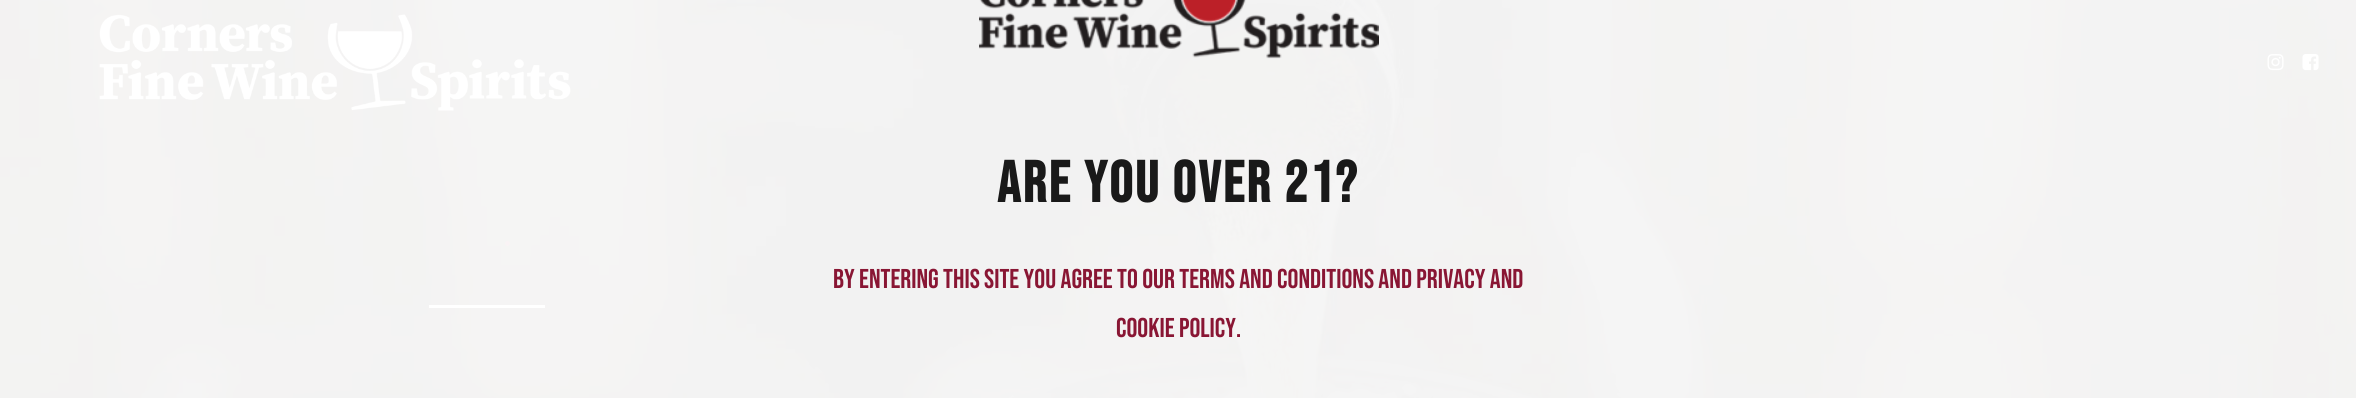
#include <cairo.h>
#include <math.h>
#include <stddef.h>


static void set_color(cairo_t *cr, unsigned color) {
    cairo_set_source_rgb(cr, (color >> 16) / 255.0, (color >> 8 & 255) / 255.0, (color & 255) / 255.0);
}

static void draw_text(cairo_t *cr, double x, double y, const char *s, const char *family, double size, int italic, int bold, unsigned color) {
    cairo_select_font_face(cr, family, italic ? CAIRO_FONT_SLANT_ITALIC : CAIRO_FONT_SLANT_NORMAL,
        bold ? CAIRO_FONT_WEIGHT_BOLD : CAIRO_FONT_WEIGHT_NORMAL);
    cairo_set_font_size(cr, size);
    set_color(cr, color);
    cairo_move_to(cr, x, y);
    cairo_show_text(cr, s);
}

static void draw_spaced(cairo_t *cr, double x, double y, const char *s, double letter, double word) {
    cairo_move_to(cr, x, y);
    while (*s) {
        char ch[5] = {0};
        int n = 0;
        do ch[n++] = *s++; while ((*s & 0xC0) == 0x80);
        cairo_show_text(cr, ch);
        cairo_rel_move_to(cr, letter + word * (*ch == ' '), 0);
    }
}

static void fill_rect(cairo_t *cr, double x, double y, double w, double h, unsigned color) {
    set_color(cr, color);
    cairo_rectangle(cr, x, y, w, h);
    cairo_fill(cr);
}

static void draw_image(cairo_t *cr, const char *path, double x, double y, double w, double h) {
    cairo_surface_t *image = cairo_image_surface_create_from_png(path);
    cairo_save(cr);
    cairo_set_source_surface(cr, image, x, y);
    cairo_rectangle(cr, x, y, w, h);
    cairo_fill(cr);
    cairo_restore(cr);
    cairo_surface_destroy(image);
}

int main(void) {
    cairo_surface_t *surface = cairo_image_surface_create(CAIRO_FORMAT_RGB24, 2356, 398);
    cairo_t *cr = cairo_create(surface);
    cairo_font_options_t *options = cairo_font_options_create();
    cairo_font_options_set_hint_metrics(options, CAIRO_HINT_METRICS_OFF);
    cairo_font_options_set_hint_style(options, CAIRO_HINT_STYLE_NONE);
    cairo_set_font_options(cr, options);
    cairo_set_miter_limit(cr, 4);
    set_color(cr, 0xFFFFFF);
    cairo_paint(cr);
    draw_image(cr, "assets/img1.png", 0, 0, 2356, 398);
    set_color(cr, 0xF9F3F5);
    cairo_arc(cr, 507.5, 243.5, 2.5, 0, 2 * M_PI);
    cairo_fill(cr);
    fill_rect(cr, 429, 305, 116, 3, 0xFFFFFF);
    draw_image(cr, "assets/img2.png", 98, 14, 474, 98);
    draw_image(cr, "assets/img3.png", 2267, 54, 17, 17);
    draw_image(cr, "assets/img4.png", 2302, 54, 17, 17);
    draw_image(cr, "assets/img5.png", 979, 0, 400, 59);
    cairo_select_font_face(cr, "Bebas Neue", CAIRO_FONT_SLANT_NORMAL, CAIRO_FONT_WEIGHT_BOLD);
    cairo_set_font_size(cr, 58);
    set_color(cr, 0x191919);
    draw_spaced(cr, 997, 202, "ARE YOU OVER 21?", 2.5, 0);
    draw_text(cr, 833, 288, "By entering this site you agree to our terms and conditions and privacy and", "Bebas Neue", 27.2, 0, 0, 0x891634);
    draw_text(cr, 1116, 337, "cookie policy.", "Bebas Neue", 27.2, 0, 0, 0x891634);
    cairo_surface_write_to_png(surface, "output.png");
    cairo_font_options_destroy(options);
    cairo_destroy(cr);
    cairo_surface_destroy(surface);
    return 0;
}
